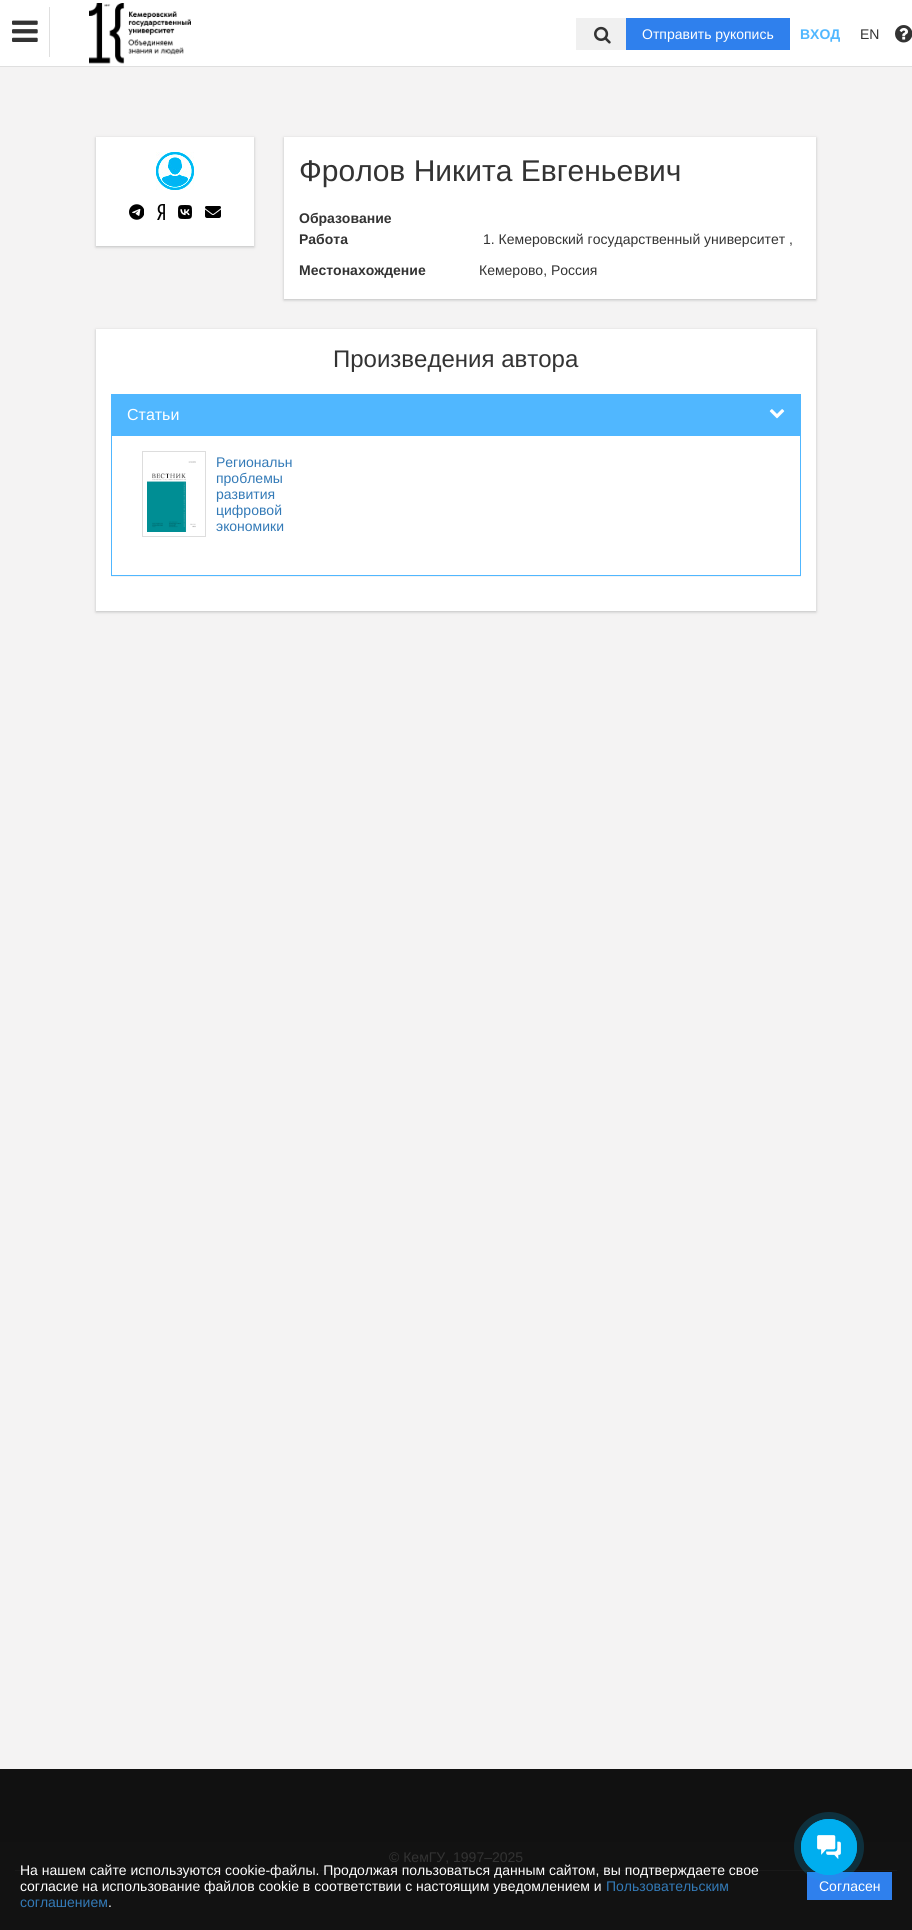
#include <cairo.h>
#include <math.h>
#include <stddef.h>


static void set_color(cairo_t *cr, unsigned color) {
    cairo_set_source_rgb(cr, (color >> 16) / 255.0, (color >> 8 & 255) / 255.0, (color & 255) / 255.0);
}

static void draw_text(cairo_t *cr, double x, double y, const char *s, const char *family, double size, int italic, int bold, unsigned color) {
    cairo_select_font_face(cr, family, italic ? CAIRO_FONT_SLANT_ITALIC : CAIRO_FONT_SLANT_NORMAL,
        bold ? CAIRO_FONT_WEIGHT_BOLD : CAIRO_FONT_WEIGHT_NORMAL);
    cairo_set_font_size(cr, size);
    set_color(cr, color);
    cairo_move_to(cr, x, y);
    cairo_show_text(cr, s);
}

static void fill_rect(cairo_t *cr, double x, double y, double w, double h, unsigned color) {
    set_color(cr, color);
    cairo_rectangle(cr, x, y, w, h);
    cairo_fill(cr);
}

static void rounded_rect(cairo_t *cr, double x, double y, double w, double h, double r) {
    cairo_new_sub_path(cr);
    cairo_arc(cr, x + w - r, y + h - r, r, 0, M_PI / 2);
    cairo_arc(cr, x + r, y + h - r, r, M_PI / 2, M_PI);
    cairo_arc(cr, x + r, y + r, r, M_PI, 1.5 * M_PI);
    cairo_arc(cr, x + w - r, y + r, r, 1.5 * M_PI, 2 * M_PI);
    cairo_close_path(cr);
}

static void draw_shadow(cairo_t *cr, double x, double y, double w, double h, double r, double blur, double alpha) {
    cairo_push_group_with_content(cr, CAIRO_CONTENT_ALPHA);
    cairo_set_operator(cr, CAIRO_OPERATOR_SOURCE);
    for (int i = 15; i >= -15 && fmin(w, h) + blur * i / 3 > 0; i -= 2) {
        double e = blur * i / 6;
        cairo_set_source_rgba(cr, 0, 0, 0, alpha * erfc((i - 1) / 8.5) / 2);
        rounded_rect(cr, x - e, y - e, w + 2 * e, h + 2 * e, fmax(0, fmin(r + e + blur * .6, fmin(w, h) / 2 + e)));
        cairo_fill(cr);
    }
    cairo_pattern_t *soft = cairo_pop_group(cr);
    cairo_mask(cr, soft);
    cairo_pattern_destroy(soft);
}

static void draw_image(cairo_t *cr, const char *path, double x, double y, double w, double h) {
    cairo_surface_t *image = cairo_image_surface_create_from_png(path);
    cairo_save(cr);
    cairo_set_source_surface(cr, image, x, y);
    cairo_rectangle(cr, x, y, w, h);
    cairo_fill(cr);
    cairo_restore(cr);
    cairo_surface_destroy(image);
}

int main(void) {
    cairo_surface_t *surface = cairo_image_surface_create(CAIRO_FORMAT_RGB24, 912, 1930);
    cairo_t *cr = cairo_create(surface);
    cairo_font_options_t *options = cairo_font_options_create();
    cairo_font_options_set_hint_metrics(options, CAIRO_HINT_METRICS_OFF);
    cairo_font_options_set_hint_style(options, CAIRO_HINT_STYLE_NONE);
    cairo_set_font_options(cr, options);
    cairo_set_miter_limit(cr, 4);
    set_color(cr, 0xF4F3F3);
    cairo_paint(cr);
    fill_rect(cr, 0, 0, 912, 66, 0xFFFFFF);
    fill_rect(cr, 0, 66, 912, 1, 0xDFDFDF);
    fill_rect(cr, 49, 7, 1, 50, 0xDFDFDF);
    draw_image(cr, "assets/img1.png", 12, 20, 26, 22);
    draw_image(cr, "assets/img2.png", 89, 3, 102, 61);
    fill_rect(cr, 576, 18, 50, 32, 0xF0F0F0);
    draw_image(cr, "assets/img3.png", 594, 26, 17, 18);
    fill_rect(cr, 626, 18, 164, 32, 0x2F80ED);
    draw_text(cr, 642, 39, "Отправить рукопись", "Liberation Sans", 14, 0, 0, 0xFFFFFF);
    draw_text(cr, 800, 39, "ВХОД", "Liberation Sans", 14, 0, 1, 0x50B7FF);
    draw_text(cr, 860, 39, "EN", "Liberation Sans", 14, 0, 0, 0x333333);
    draw_image(cr, "assets/img4.png", 895, 25, 17, 18);
    set_color(cr, 0xBFBFBF);
    draw_shadow(cr, 96, 138, 158, 109, 0, 1.5, 1);
    fill_rect(cr, 96, 137, 158, 109, 0xFFFFFF);
    draw_image(cr, "assets/img5.png", 156, 152, 38, 38);
    draw_image(cr, "assets/img6.png", 129, 204, 15, 16);
    draw_image(cr, "assets/img7.png", 157, 204, 8, 16);
    draw_image(cr, "assets/img8.png", 178, 205, 14, 14);
    draw_image(cr, "assets/img9.png", 205, 206, 16, 12);
    set_color(cr, 0xBFBFBF);
    draw_shadow(cr, 284, 138, 532, 162, 0, 1.5, 1);
    fill_rect(cr, 284, 137, 532, 162, 0xFFFFFF);
    draw_text(cr, 299, 181, "Фролов Никита Евгеньевич", "Liberation Sans", 30, 0, 0, 0x333333);
    draw_text(cr, 299, 223, "Образование", "Liberation Sans", 14, 0, 1, 0x333333);
    draw_text(cr, 299, 244, "Работа", "Liberation Sans", 14, 0, 1, 0x333333);
    draw_text(cr, 483, 244, "1. Кемеровский государственный университет ,", "Liberation Sans", 14, 0, 0, 0x333333);
    draw_text(cr, 299, 275, "Местонахождение", "Liberation Sans", 14, 0, 1, 0x333333);
    draw_text(cr, 479, 275, "Кемерово, Россия", "Liberation Sans", 14, 0, 0, 0x333333);
    set_color(cr, 0xBFBFBF);
    draw_shadow(cr, 96, 330, 720, 282, 0, 1.5, 1);
    fill_rect(cr, 96, 329, 720, 282, 0xFFFFFF);
    draw_text(cr, 333, 367, "Произведения автора", "Liberation Sans", 24, 0, 0, 0x333333);
    cairo_save(cr);
    cairo_rectangle(cr, 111, 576, 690, 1);
    cairo_clip(cr);
    set_color(cr, 0x000000);
    draw_shadow(cr, 111, 395, 690, 182, 0, 0.5, 0.05);
    cairo_restore(cr);
    cairo_rectangle(cr, 111.5, 394.5, 689, 181);
    set_color(cr, 0x50B7FF);
    cairo_set_line_width(cr, 1);
    cairo_stroke(cr);
    fill_rect(cr, 112, 395, 688, 41, 0x50B7FF);
    draw_text(cr, 127, 420, "Статьи", "Liberation Sans", 16, 0, 0, 0xFFFFFF);
    draw_image(cr, "assets/img10.png", 769, 409, 16, 10);
    cairo_rectangle(cr, 142.5, 451.5, 63, 85);
    set_color(cr, 0xDDDDDD);
    cairo_stroke(cr);
    draw_image(cr, "assets/img11.png", 147, 461, 49, 71);
    draw_text(cr, 216, 467, "Региональн", "Liberation Sans", 14, 0, 0, 0x337AB7);
    draw_text(cr, 216, 483, "проблемы", "Liberation Sans", 14, 0, 0, 0x337AB7);
    draw_text(cr, 216, 499, "развития", "Liberation Sans", 14, 0, 0, 0x337AB7);
    draw_text(cr, 216, 515, "цифровой", "Liberation Sans", 14, 0, 0, 0x337AB7);
    draw_text(cr, 216, 531, "экономики", "Liberation Sans", 14, 0, 0, 0x337AB7);
    fill_rect(cr, 0, 1769, 912, 73, 0x111111);
    fill_rect(cr, 0, 1842, 912, 88, 0x121212);
    draw_text(cr, 389, 1862, "© КемГУ, 1997–2025", "Liberation Sans", 14, 0, 0, 0x333333);
    fill_rect(cr, 15, 1870, 882, 1, 0x191919);
    draw_text(cr, 20, 1875, "На нашем сайте используются cookie-файлы. Продолжая пользоваться данным сайтом, вы подтверждаете свое", "Liberation Sans", 14, 0, 0, 0xFFFFFF);
    draw_text(cr, 20, 1891, "согласие на использование файлов cookie в соответствии с настоящим уведомлением и", "Liberation Sans", 14, 0, 0, 0xFFFFFF);
    draw_text(cr, 606, 1891, "Пользовательским", "Liberation Sans", 14, 0, 0, 0x337AB7);
    draw_text(cr, 20, 1907, "соглашением", "Liberation Sans", 14, 0, 0, 0x337AB7);
    draw_text(cr, 108, 1907, ".", "Liberation Sans", 14, 0, 0, 0xFFFFFF);
    fill_rect(cr, 807, 1872, 85, 28, 0x2F80ED);
    draw_text(cr, 819, 1891, "Согласен", "Liberation Sans", 14, 0, 0, 0xFFFFFF);
    cairo_set_source_rgba(cr, 0, 0.682, 0.937, 0.2);
    cairo_new_path(cr);
    cairo_arc(cr, 829, 1847, 35, 0, 2 * M_PI);
    cairo_fill(cr);
    cairo_arc(cr, 829, 1847, 27.6, 0, 2 * M_PI);
    set_color(cr, 0x00AEEF);
    cairo_set_line_width(cr, 0.8);
    cairo_stroke(cr);
    cairo_arc(cr, 829, 1847, 28, 0, 2 * M_PI);
    cairo_fill(cr);
    draw_image(cr, "assets/img12.png", 817, 1835, 24, 24);
    cairo_surface_write_to_png(surface, "output.png");
    cairo_font_options_destroy(options);
    cairo_destroy(cr);
    cairo_surface_destroy(surface);
    return 0;
}
